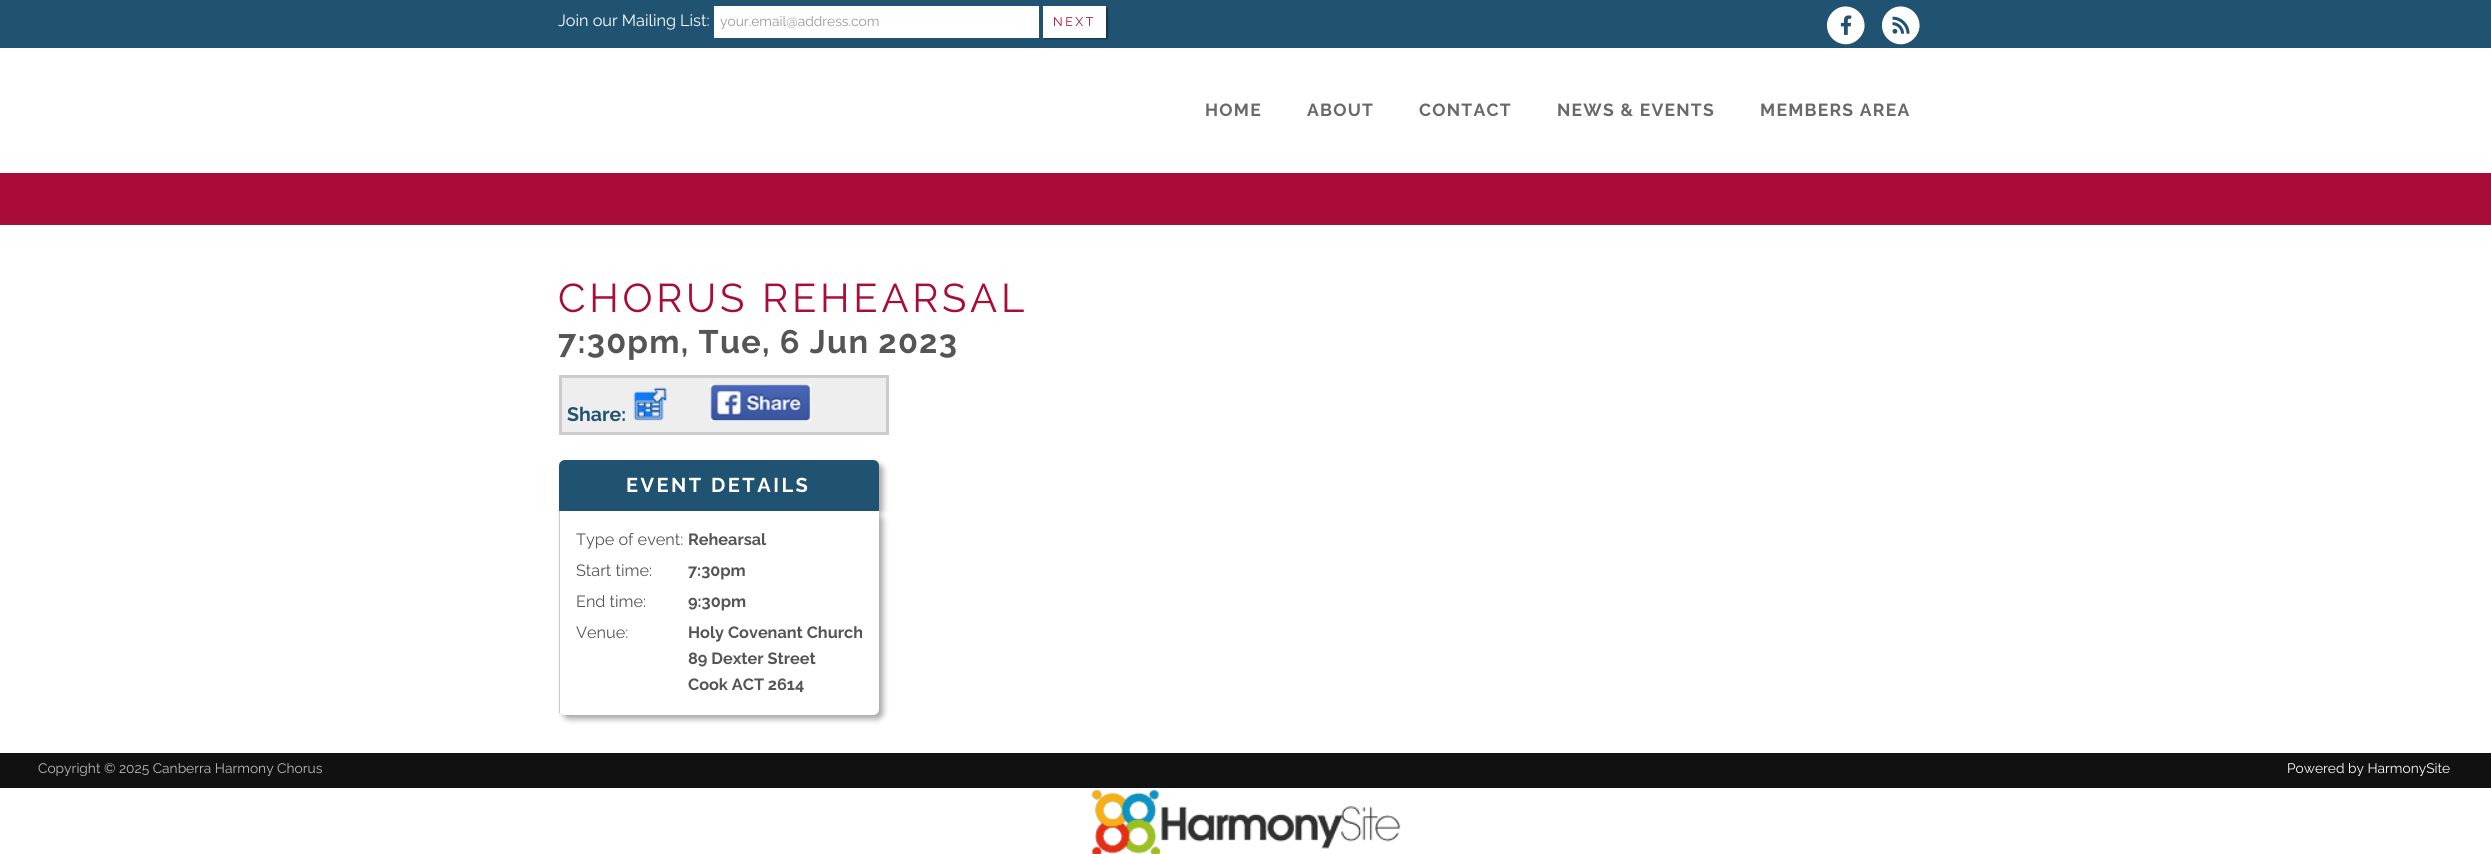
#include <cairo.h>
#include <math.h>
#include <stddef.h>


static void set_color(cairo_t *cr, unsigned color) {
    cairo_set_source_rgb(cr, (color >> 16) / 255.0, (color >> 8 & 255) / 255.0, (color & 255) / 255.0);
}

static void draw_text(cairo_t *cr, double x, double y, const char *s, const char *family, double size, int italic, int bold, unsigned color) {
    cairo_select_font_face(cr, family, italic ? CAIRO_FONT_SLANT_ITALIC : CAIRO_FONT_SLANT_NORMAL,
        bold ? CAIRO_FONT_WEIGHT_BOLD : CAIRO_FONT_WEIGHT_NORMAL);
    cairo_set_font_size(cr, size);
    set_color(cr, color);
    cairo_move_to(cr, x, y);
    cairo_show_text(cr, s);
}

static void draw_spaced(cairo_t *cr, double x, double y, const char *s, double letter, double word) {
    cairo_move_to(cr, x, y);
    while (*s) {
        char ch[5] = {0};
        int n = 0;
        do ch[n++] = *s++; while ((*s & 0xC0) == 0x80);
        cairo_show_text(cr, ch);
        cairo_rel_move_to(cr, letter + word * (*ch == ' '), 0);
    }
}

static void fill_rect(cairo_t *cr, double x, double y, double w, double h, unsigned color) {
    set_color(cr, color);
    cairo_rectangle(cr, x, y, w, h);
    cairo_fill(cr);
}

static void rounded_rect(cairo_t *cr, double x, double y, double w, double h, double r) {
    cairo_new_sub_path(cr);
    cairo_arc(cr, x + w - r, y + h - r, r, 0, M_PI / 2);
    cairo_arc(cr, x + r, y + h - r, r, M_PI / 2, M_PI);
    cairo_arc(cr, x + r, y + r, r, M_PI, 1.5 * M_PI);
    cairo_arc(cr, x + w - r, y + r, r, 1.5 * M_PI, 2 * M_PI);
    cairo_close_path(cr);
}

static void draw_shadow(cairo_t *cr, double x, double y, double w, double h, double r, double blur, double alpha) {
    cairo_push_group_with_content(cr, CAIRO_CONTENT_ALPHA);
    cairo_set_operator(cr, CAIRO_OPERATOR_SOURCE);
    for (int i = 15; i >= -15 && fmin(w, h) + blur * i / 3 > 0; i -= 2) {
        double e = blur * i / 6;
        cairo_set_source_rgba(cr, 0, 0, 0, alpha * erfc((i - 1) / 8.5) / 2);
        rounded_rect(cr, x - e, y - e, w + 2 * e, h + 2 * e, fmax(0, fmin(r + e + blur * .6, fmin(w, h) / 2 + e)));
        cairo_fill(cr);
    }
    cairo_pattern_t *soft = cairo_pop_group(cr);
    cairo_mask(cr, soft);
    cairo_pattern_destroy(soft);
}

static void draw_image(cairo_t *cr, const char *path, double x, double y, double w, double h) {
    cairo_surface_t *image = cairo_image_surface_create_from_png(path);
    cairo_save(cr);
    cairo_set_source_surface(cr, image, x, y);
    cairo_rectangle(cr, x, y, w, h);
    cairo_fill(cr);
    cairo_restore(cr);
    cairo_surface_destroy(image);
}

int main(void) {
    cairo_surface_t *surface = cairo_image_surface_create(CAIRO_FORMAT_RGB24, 2491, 854);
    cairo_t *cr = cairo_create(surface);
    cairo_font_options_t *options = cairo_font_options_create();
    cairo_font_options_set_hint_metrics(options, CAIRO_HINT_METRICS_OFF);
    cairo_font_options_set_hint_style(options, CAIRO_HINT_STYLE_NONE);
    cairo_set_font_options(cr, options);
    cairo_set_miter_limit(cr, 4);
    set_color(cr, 0xFFFFFF);
    cairo_paint(cr);
    fill_rect(cr, 0, 0, 2491, 48, 0x205272);
    draw_text(cr, 558, 26, "Join our Mailing List:", "Raleway", 16.25, 0, 0, 0xFFFFFF);
    fill_rect(cr, 714, 6, 325, 32, 0xFFFFFF);
    draw_text(cr, 720, 26, "your.email@address.com", "Raleway", 13.75, 0, 0, 0x999999);
    set_color(cr, 0x000000);
    draw_shadow(cr, 1044, 8, 64, 31, 0, 0.5, 0.35);
    fill_rect(cr, 1043, 6, 63, 32, 0xFFFFFF);
    cairo_set_font_size(cr, 12.5);
    set_color(cr, 0xA90C38);
    draw_spaced(cr, 1053, 26, "NEXT", 2.5, 0);
    set_color(cr, 0xFFFFFF);
    cairo_new_path(cr);
    cairo_move_to(cr, 1832.5, 12);
    cairo_curve_to(cr, 1845, -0.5, 1866, 9.5, 1864.5, 27.5);
    cairo_curve_to(cr, 1864, 31.5, 1862, 35.5, 1859, 38.5);
    cairo_curve_to(cr, 1846.5, 51.5, 1825.5, 41, 1827, 23.5);
    cairo_curve_to(cr, 1827.5, 19, 1829.5, 15, 1832.5, 12);
    cairo_close_path(cr);
    cairo_fill(cr);
    draw_image(cr, "assets/img1.png", 1840, 15, 12, 20);
    cairo_new_path(cr);
    cairo_move_to(cr, 1887.5, 12);
    cairo_curve_to(cr, 1900, -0.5, 1921, 9.5, 1919.5, 27.5);
    cairo_curve_to(cr, 1919, 31.5, 1917, 35.5, 1914, 38.5);
    cairo_curve_to(cr, 1901.5, 51.5, 1880.5, 41, 1882, 23.5);
    cairo_curve_to(cr, 1882.5, 19, 1884.5, 15, 1887.5, 12);
    cairo_close_path(cr);
    cairo_fill(cr);
    draw_image(cr, "assets/img2.png", 1892, 16, 18, 18);
    cairo_select_font_face(cr, "Raleway", CAIRO_FONT_SLANT_NORMAL, CAIRO_FONT_WEIGHT_BOLD);
    cairo_set_font_size(cr, 17.5);
    set_color(cr, 0x696969);
    draw_spaced(cr, 1205, 116, "HOME", 1.25, 0);
    draw_spaced(cr, 1307, 116, "ABOUT", 1.25, 0);
    draw_spaced(cr, 1419, 116, "CONTACT", 1.25, 0);
    draw_spaced(cr, 1557, 116, "NEWS & EVENTS", 1.25, 0);
    draw_spaced(cr, 1760, 116, "MEMBERS AREA", 1.25, 0);
    fill_rect(cr, 0, 173, 2491, 52, 0xA90C38);
    cairo_select_font_face(cr, "Raleway", CAIRO_FONT_SLANT_NORMAL, CAIRO_FONT_WEIGHT_NORMAL);
    cairo_set_font_size(cr, 40);
    draw_spaced(cr, 558, 312, "CHORUS REHEARSAL", 3.75, 0);
    cairo_select_font_face(cr, "Raleway", CAIRO_FONT_SLANT_NORMAL, CAIRO_FONT_WEIGHT_BOLD);
    cairo_set_font_size(cr, 32.5);
    set_color(cr, 0x555555);
    draw_spaced(cr, 558, 353, "7:30pm, Tue, 6 Jun 2023", 1.25, 0);
    set_color(cr, 0xEEEEEE);
    cairo_rectangle(cr, 560.5, 376.5, 327, 57);
    cairo_fill_preserve(cr);
    set_color(cr, 0xCCCCCC);
    cairo_set_line_width(cr, 3);
    cairo_stroke(cr);
    draw_text(cr, 567, 421, "Share:", "Raleway", 19.5, 0, 1, 0x205272);
    draw_image(cr, "assets/img3.png", 633, 387, 34, 34);
    draw_image(cr, "assets/img4.png", 710, 383, 102, 39);
    set_color(cr, 0x000000);
    draw_shadow(cr, 563, 464, 320, 51, 6, 3, 0.35);
    set_color(cr, 0x205272);
    cairo_new_path(cr);
    cairo_move_to(cr, 565, 460);
    cairo_line_to(cr, 873, 460);
    cairo_curve_to(cr, 876.5, 460, 879, 462.5, 879, 466);
    cairo_line_to(cr, 879, 511);
    cairo_line_to(cr, 559, 511);
    cairo_line_to(cr, 559, 466);
    cairo_curve_to(cr, 559, 462.5, 561.5, 460, 565, 460);
    cairo_close_path(cr);
    cairo_fill(cr);
    cairo_set_font_size(cr, 20);
    set_color(cr, 0xFFFFFF);
    draw_spaced(cr, 626, 492, "EVENT DETAILS", 2.5, 0);
    set_color(cr, 0x000000);
    draw_shadow(cr, 563, 515, 320, 204, 6, 3, 0.35);
    set_color(cr, 0xFFFFFF);
    cairo_new_path(cr);
    cairo_move_to(cr, 559, 511);
    cairo_line_to(cr, 879, 511);
    cairo_line_to(cr, 879, 709);
    cairo_curve_to(cr, 879, 712.5, 876.5, 715, 873, 715);
    cairo_line_to(cr, 565, 715);
    cairo_curve_to(cr, 561.5, 715, 559, 712.5, 559, 709);
    cairo_close_path(cr);
    cairo_fill(cr);
    fill_rect(cr, 559, 511, 1, 202, 0xCCCCCC);
    draw_text(cr, 576, 545, "Type of event:", "Raleway", 16.25, 0, 0, 0x555555);
    draw_text(cr, 688, 545, "Rehearsal", "Raleway", 16.25, 0, 1, 0x555555);
    draw_text(cr, 576, 576, "Start time:", "Raleway", 16.25, 0, 0, 0x555555);
    draw_text(cr, 688, 576, "7:30pm", "Raleway", 16.25, 0, 1, 0x555555);
    draw_text(cr, 576, 607, "End time:", "Raleway", 16.25, 0, 0, 0x555555);
    draw_text(cr, 688, 607, "9:30pm", "Raleway", 16.25, 0, 1, 0x555555);
    draw_text(cr, 576, 638, "Venue:", "Raleway", 16.25, 0, 0, 0x555555);
    draw_text(cr, 688, 638, "Holy Covenant Church", "Raleway", 16.25, 0, 1, 0x555555);
    draw_text(cr, 688, 664, "89 Dexter Street", "Raleway", 16.25, 0, 1, 0x555555);
    draw_text(cr, 688, 690, "Cook ACT 2614", "Raleway", 16.25, 0, 1, 0x555555);
    fill_rect(cr, 0, 753, 2491, 35, 0x111111);
    draw_text(cr, 38, 773, "Copyright © 2025 Canberra Harmony Chorus", "Raleway", 13.75, 0, 0, 0xBBBBBB);
    draw_text(cr, 2287, 773, "Powered by HarmonySite", "Raleway", 13.75, 0, 0, 0xFFFFFF);
    draw_image(cr, "assets/img5.png", 1091, 789, 310, 65);
    cairo_surface_write_to_png(surface, "output.png");
    cairo_font_options_destroy(options);
    cairo_destroy(cr);
    cairo_surface_destroy(surface);
    return 0;
}
